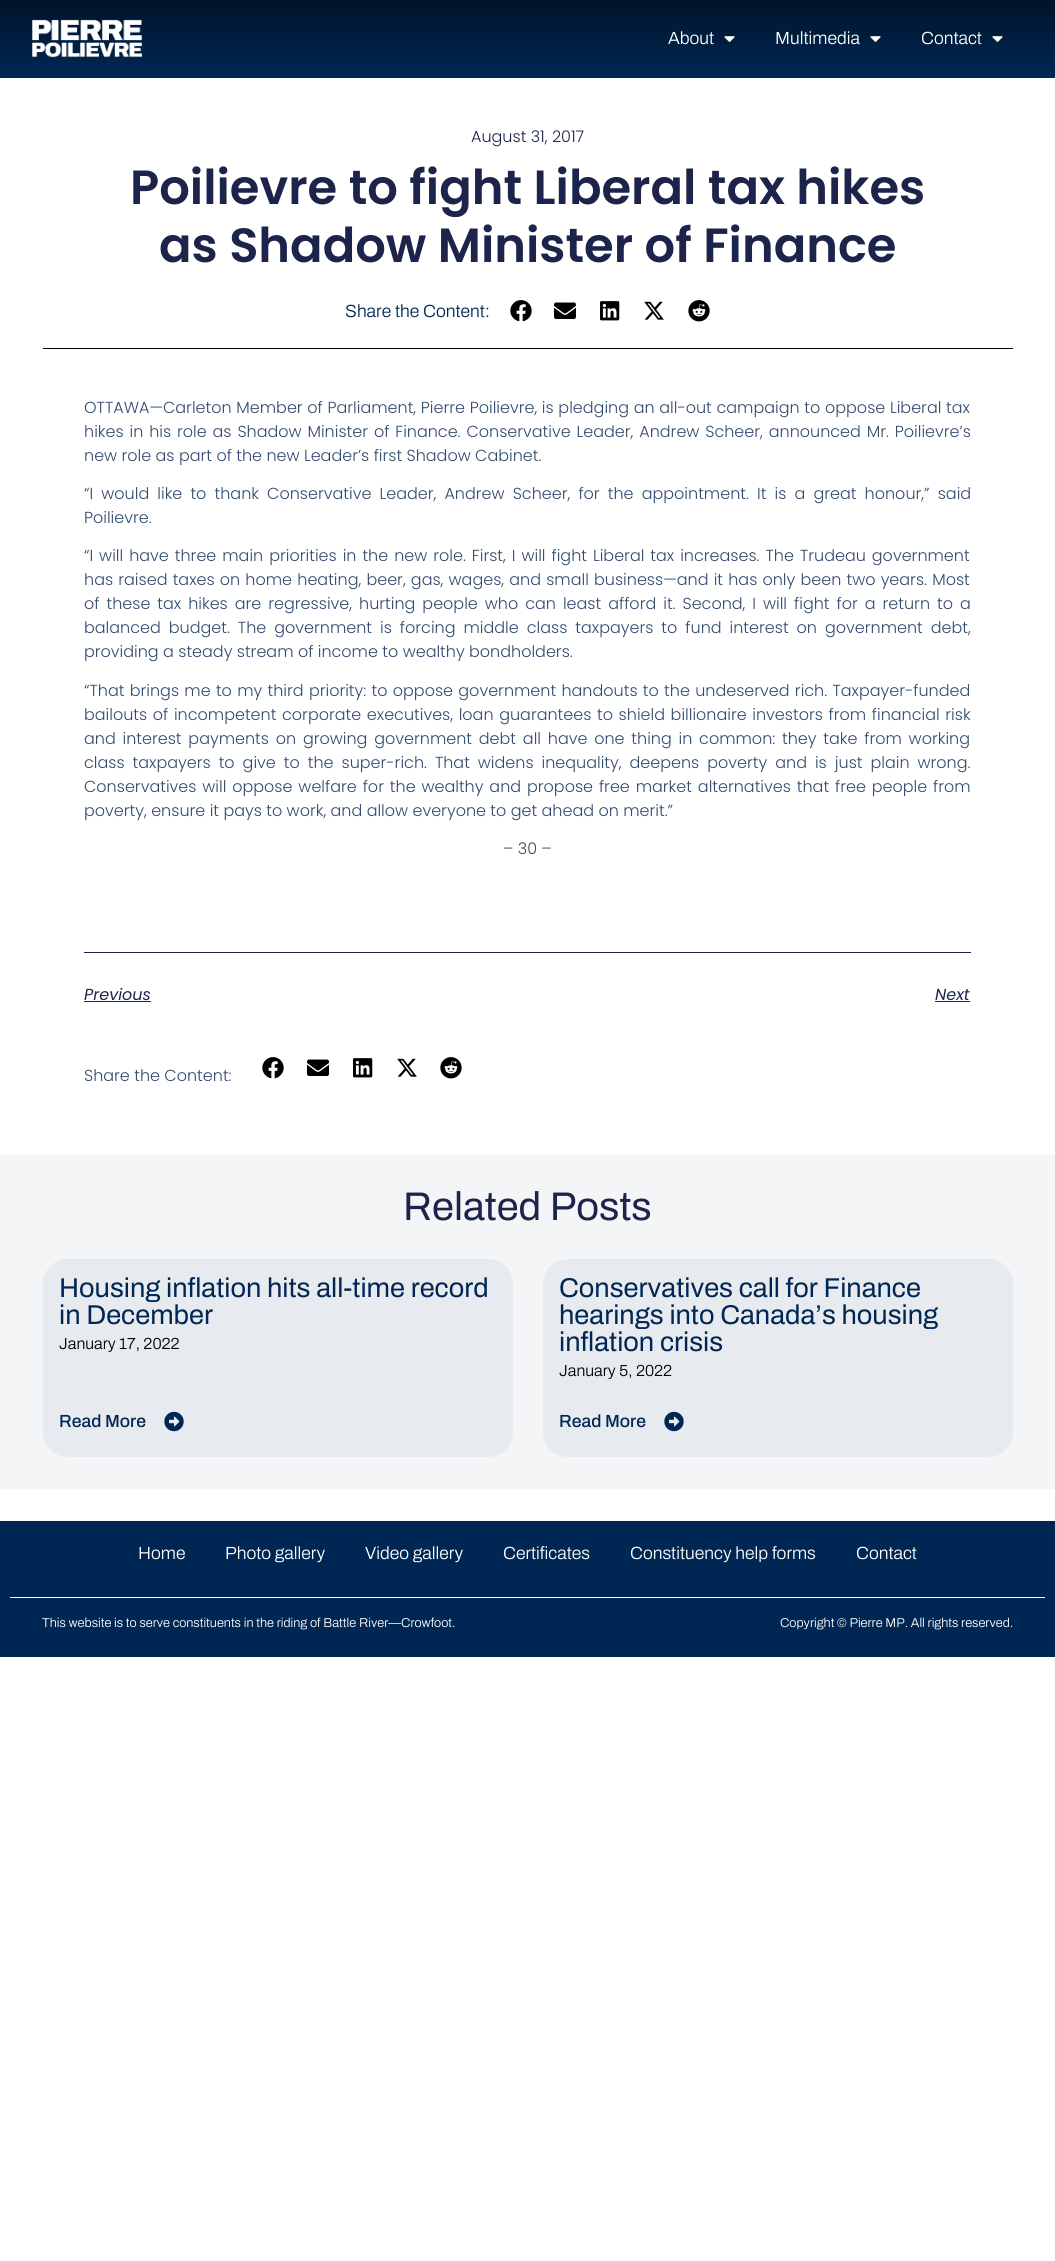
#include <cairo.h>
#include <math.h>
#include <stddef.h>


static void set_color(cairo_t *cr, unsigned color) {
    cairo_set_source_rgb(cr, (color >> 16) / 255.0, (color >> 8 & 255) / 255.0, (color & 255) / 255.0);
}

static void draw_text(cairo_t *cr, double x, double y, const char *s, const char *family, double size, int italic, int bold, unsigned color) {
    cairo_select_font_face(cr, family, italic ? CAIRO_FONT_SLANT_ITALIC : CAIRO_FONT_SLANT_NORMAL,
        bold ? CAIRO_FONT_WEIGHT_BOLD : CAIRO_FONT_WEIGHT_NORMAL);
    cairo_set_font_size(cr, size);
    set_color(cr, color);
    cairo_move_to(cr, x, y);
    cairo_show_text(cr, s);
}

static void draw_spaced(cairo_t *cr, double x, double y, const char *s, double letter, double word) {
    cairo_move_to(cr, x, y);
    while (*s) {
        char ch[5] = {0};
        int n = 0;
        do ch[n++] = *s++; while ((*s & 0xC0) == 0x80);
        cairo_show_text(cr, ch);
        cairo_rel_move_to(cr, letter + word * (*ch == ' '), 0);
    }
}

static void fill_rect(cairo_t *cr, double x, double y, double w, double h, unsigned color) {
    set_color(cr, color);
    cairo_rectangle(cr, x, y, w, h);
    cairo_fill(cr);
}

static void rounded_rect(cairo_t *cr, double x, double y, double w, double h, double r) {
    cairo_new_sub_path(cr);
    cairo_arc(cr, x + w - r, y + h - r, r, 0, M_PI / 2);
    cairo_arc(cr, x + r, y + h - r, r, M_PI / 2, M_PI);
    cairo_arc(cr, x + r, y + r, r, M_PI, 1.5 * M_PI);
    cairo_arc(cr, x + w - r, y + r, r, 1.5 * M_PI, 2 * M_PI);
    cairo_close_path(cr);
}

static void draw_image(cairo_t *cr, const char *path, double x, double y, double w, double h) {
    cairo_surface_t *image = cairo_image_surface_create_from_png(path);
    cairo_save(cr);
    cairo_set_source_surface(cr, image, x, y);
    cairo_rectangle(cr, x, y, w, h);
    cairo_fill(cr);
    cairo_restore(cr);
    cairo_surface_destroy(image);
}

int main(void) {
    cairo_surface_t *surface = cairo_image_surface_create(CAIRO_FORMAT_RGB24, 1055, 2261);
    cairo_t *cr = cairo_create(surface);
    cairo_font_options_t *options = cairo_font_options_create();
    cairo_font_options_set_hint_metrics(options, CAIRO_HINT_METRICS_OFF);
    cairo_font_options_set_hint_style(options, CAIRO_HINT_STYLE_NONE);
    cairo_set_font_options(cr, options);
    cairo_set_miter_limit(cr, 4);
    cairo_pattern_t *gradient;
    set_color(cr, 0xFFFFFF);
    cairo_paint(cr);
    gradient = cairo_pattern_create_linear(528, 0, 528, 78);
    cairo_pattern_add_color_stop_rgba(gradient, 0, 0, 0.078, 0.165, 1);
    cairo_pattern_add_color_stop_rgba(gradient, 1, 0, 0.153, 0.329, 1);
    cairo_set_source(cr, gradient);
    cairo_pattern_destroy(gradient);
    cairo_rectangle(cr, 0, 0, 1055, 78);
    cairo_fill(cr);
    draw_image(cr, "assets/img1.png", 32, 19, 110, 39);
    draw_text(cr, 668, 44, "About", "Archivo Light", 17.6, 0, 0, 0xFFFFFF);
    draw_image(cr, "assets/img2.png", 724, 36, 11, 6);
    draw_text(cr, 775, 44, "Multimedia", "Archivo Light", 17.6, 0, 0, 0xFFFFFF);
    draw_image(cr, "assets/img2.png", 870, 36, 11, 6);
    draw_text(cr, 921, 44, "Contact", "Archivo Light", 17.6, 0, 0, 0xFFFFFF);
    draw_image(cr, "assets/img2.png", 992, 36, 11, 6);
    draw_text(cr, 471, 142, "August 31, 2017", "Poppins Light", 16, 0, 0, 0x1C244B);
    draw_text(cr, 130, 204, "Poilievre to fight Liberal tax hikes", "Poppins SemiBold", 48, 0, 0, 0x1C244B);
    draw_text(cr, 159, 262, "as Shadow Minister of Finance", "Poppins SemiBold", 48, 0, 0, 0x1C244B);
    draw_text(cr, 345, 317, "Share the Content:", "Archivo Light", 17.6, 0, 0, 0x002754);
    draw_image(cr, "assets/img3.png", 510, 300, 22, 22);
    draw_image(cr, "assets/img4.png", 554, 302, 22, 17);
    draw_image(cr, "assets/img5.png", 600, 301, 20, 20);
    draw_image(cr, "assets/img6.png", 644, 301, 20, 19);
    draw_image(cr, "assets/img7.png", 688, 300, 22, 22);
    fill_rect(cr, 43, 348, 970, 1, 0x000000);
    cairo_select_font_face(cr, "Poppins Light", CAIRO_FONT_SLANT_NORMAL, CAIRO_FONT_WEIGHT_NORMAL);
    cairo_set_font_size(cr, 16);
    set_color(cr, 0x324A6D);
    draw_spaced(cr, 84, 413, "OTTAWA—Carleton Member of Parliament, Pierre Poilievre, is pledging an all-out campaign to oppose Liberal tax", 0, 0.3);
    draw_spaced(cr, 84, 437, "hikes in his role as Shadow Minister of Finance. Conservative Leader, Andrew Scheer, announced Mr. Poilievre’s", 0, 1.5);
    draw_text(cr, 84, 461, "new role as part of the new Leader’s first Shadow Cabinet.", "Poppins Light", 16, 0, 0, 0x324A6D);
    draw_spaced(cr, 84, 499, "“I would like to thank Conservative Leader, Andrew Scheer, for the appointment. It is a great honour,” said", 0, 3.75);
    draw_text(cr, 84, 523, "Poilievre.", "Poppins Light", 16, 0, 0, 0x324A6D);
    draw_spaced(cr, 84, 561, "“I will have three main priorities in the new role. First, I will fight Liberal tax increases. The Trudeau government", 0, 1.6);
    draw_spaced(cr, 84, 585, "has raised taxes on home heating, beer, gas, wages, and small business—and it has only been two years. Most", 0, 0.8);
    draw_spaced(cr, 84, 609, "of these tax hikes are regressive, hurting people who can least afford it. Second, I will fight for a return to a", 0, 2.6);
    draw_spaced(cr, 84, 633, "balanced budget. The government is forcing middle class taxpayers to fund interest on government debt,", 0, 3.6);
    draw_text(cr, 84, 657, "providing a steady stream of income to wealthy bondholders.", "Poppins Light", 16, 0, 0, 0x324A6D);
    draw_spaced(cr, 84, 696, "“That brings me to my third priority: to oppose government handouts to the undeserved rich. Taxpayer-funded", 0, 0.9);
    draw_spaced(cr, 84, 720, "bailouts of incompetent corporate executives, loan guarantees to shield billionaire investors from financial risk", 0, 1.25);
    draw_spaced(cr, 84, 744, "and interest payments on growing government debt all have one thing in common: they take from working", 0, 2.4);
    draw_spaced(cr, 84, 768, "class taxpayers to give to the super-rich. That widens inequality, deepens poverty and is just plain wrong.", 0, 3.6);
    draw_spaced(cr, 84, 792, "Conservatives will oppose welfare for the wealthy and propose free market alternatives that free people from", 0, 1.5);
    draw_text(cr, 84, 816, "poverty, ensure it pays to work, and allow everyone to get ahead on merit.”", "Poppins Light", 16, 0, 0, 0x324A6D);
    draw_text(cr, 503, 854, "– 30 –", "Poppins Light", 16, 0, 0, 0x324A6D);
    fill_rect(cr, 84, 952, 887, 1, 0x1C244B);
    draw_text(cr, 84, 1000, "Previous", "Poppins", 16, 1, 0, 0x1C244B);
    fill_rect(cr, 84, 1001, 67, 1, 0x1C244B);
    draw_text(cr, 935, 1000, "Next", "Poppins", 16, 1, 0, 0x1C244B);
    fill_rect(cr, 935, 1001, 35, 1, 0x1C244B);
    draw_text(cr, 84, 1081, "Share the Content:", "Poppins Light", 16, 0, 0, 0x324A6D);
    draw_image(cr, "assets/img3.png", 262, 1057, 22, 22);
    draw_image(cr, "assets/img4.png", 307, 1059, 22, 17);
    draw_image(cr, "assets/img5.png", 353, 1058, 20, 20);
    draw_image(cr, "assets/img6.png", 397, 1058, 20, 19);
    draw_image(cr, "assets/img7.png", 440, 1057, 22, 22);
    fill_rect(cr, 0, 1155, 1055, 334, 0xF3F5F7);
    draw_text(cr, 403, 1220, "Related Posts", "Archivo", 40, 0, 0, 0x1C244B);
    set_color(cr, 0xE7EAEF);
    rounded_rect(cr, 43, 1259, 470, 198, 25);
    cairo_fill(cr);
    draw_text(cr, 59, 1297, "Housing inflation hits all-time record", "Archivo", 27.25, 0, 0, 0x002754);
    draw_text(cr, 59, 1324, "in December", "Archivo", 27.25, 0, 0, 0x002754);
    draw_text(cr, 59, 1349, "January 17, 2022", "Archivo Light", 16, 0, 0, 0x000000);
    draw_text(cr, 59, 1427, "Read More", "Archivo Medium", 17.6, 0, 0, 0x002754);
    draw_image(cr, "assets/img8.png", 164, 1411, 20, 21);
    set_color(cr, 0xE7EAEF);
    rounded_rect(cr, 543, 1259, 470, 198, 25);
    cairo_fill(cr);
    draw_text(cr, 559, 1297, "Conservatives call for Finance", "Archivo", 27.25, 0, 0, 0x002754);
    draw_text(cr, 559, 1324, "hearings into Canada’s housing", "Archivo", 27.25, 0, 0, 0x002754);
    draw_text(cr, 559, 1351, "inflation crisis", "Archivo", 27.25, 0, 0, 0x002754);
    draw_text(cr, 559, 1376, "January 5, 2022", "Archivo Light", 16, 0, 0, 0x000000);
    draw_text(cr, 559, 1427, "Read More", "Archivo Medium", 17.6, 0, 0, 0x002754);
    draw_image(cr, "assets/img8.png", 664, 1411, 20, 21);
    fill_rect(cr, 0, 1521, 1055, 136, 0x002754);
    draw_text(cr, 138, 1559, "Home", "Archivo Light", 17.6, 0, 0, 0xFFFFFF);
    draw_text(cr, 225, 1559, "Photo gallery", "Archivo Light", 17.6, 0, 0, 0xFFFFFF);
    draw_text(cr, 365, 1559, "Video gallery", "Archivo Light", 17.6, 0, 0, 0xFFFFFF);
    draw_text(cr, 503, 1559, "Certificates", "Archivo Light", 17.6, 0, 0, 0xFFFFFF);
    draw_text(cr, 630, 1559, "Constituency help forms", "Archivo Light", 17.6, 0, 0, 0xFFFFFF);
    draw_text(cr, 856, 1559, "Contact", "Archivo Light", 17.6, 0, 0, 0xFFFFFF);
    fill_rect(cr, 10, 1597, 1035, 1, 0xFFFFFF);
    draw_text(cr, 42, 1627, "This website is to serve constituents in the riding of Battle River—Crowfoot.", "Archivo Light", 12.8, 0, 0, 0xFFFFFF);
    draw_text(cr, 780, 1627, "Copyright © Pierre MP. All rights reserved.", "Archivo Light", 12.8, 0, 0, 0xFFFFFF);
    cairo_surface_write_to_png(surface, "output.png");
    cairo_font_options_destroy(options);
    cairo_destroy(cr);
    cairo_surface_destroy(surface);
    return 0;
}
